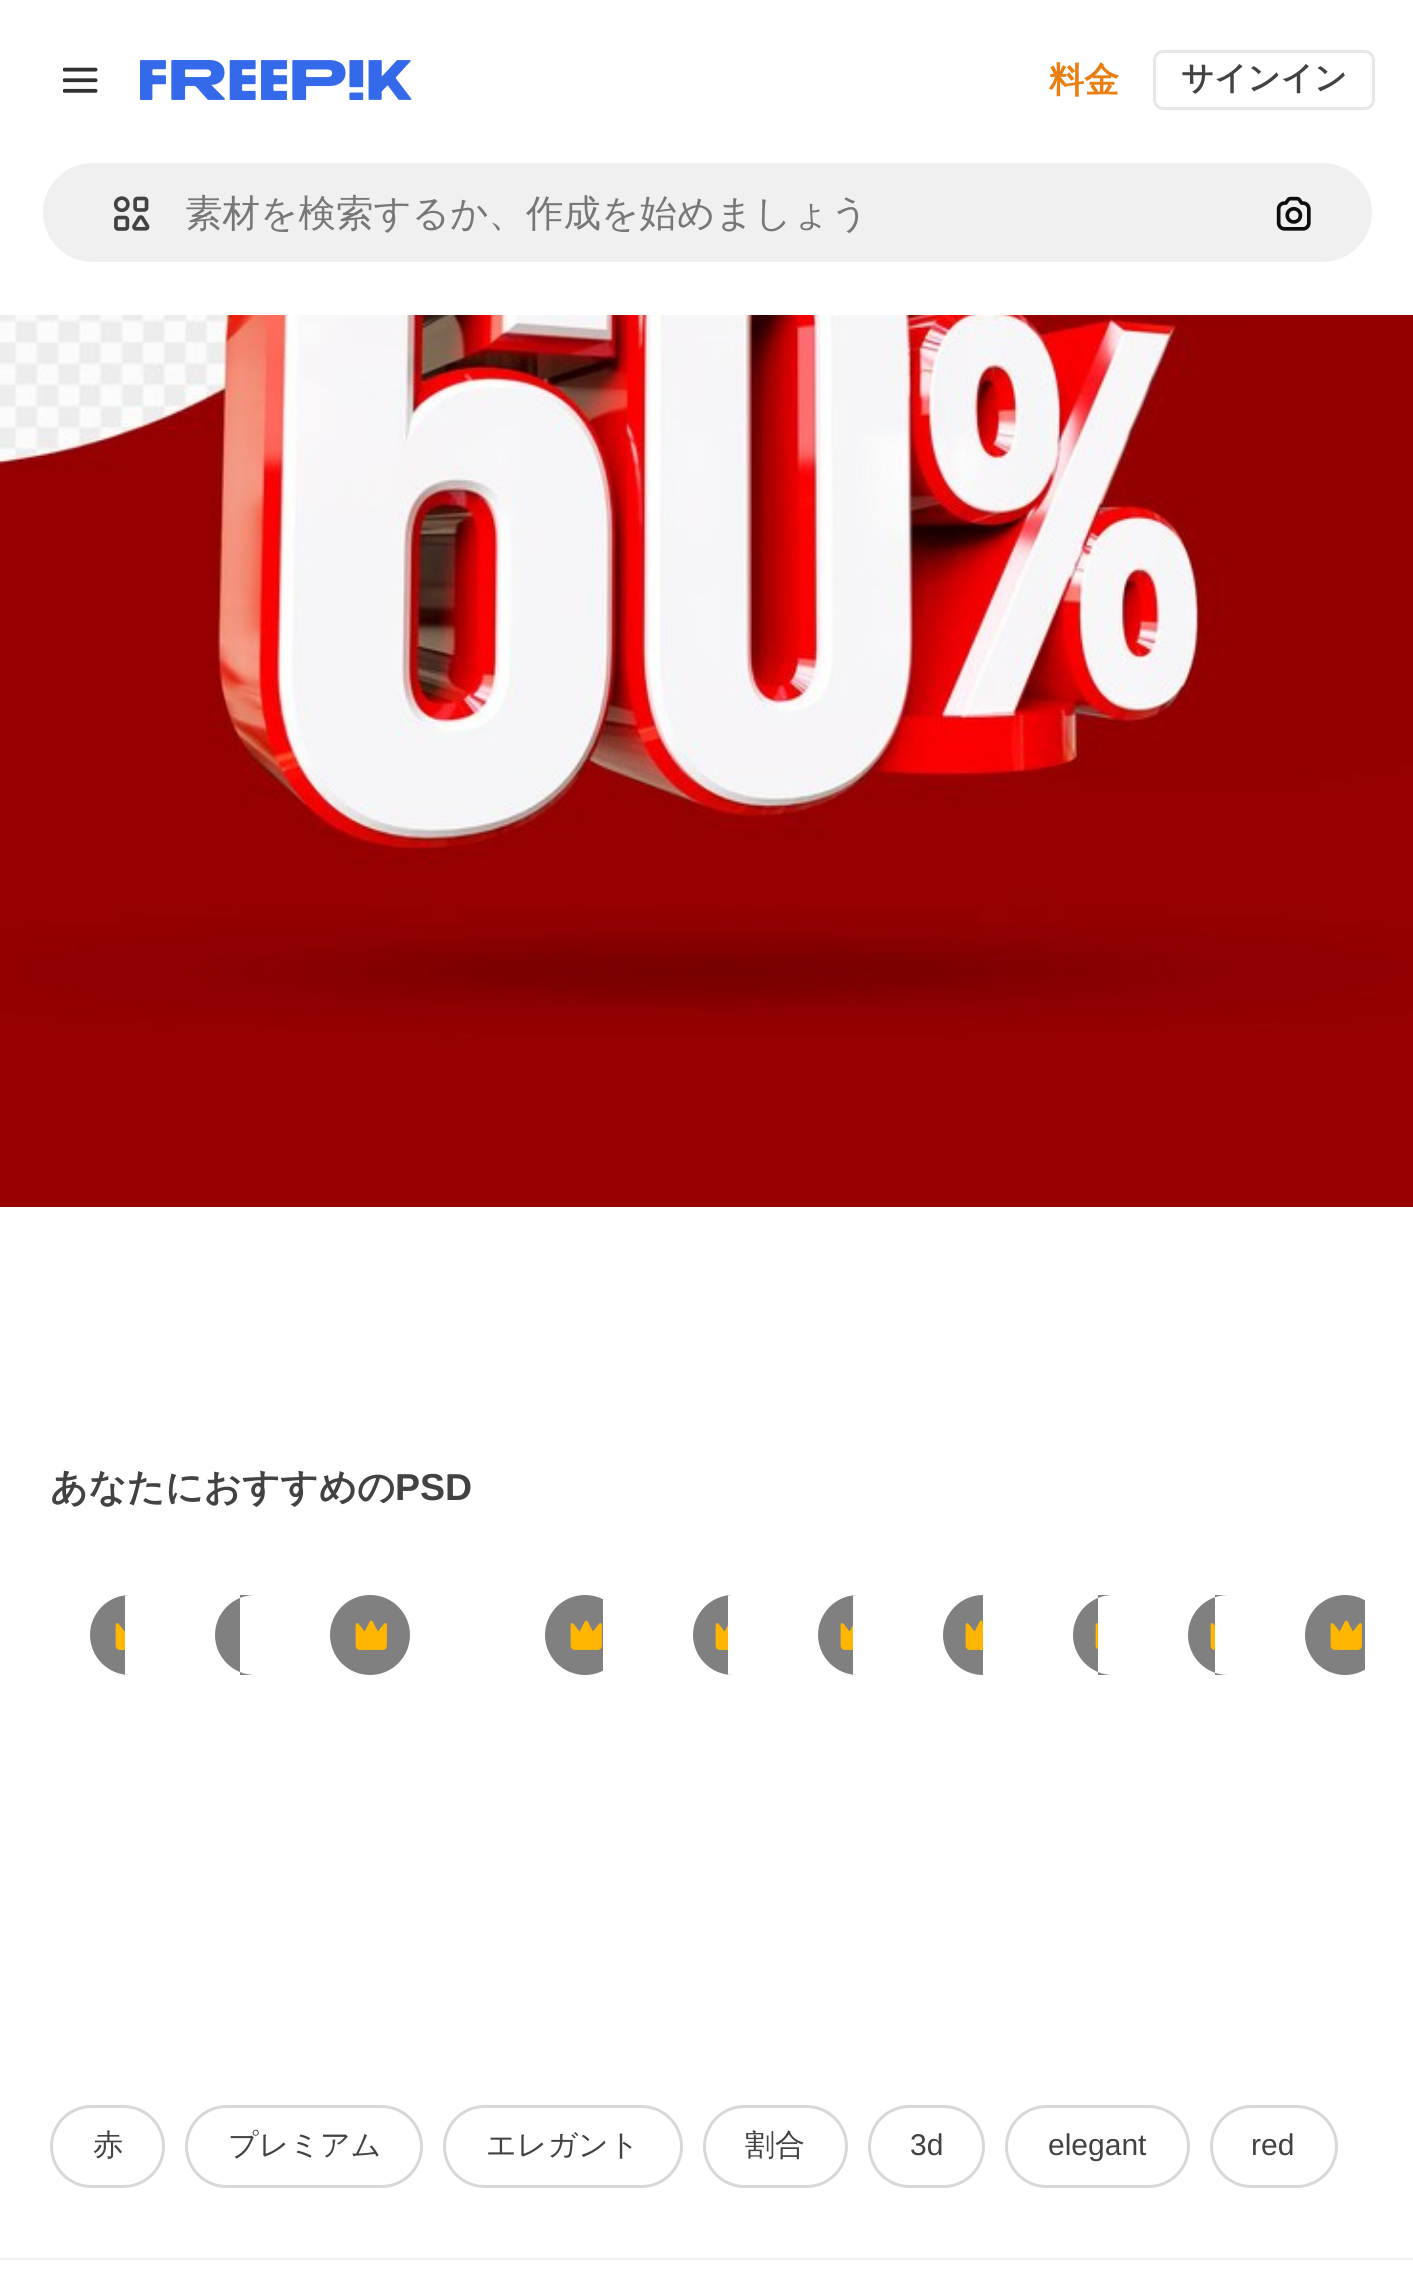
#include <cairo.h>
#include <math.h>
#include <stddef.h>


static void set_color(cairo_t *cr, unsigned color) {
    cairo_set_source_rgb(cr, (color >> 16) / 255.0, (color >> 8 & 255) / 255.0, (color & 255) / 255.0);
}

static void draw_text(cairo_t *cr, double x, double y, const char *s, const char *family, double size, int italic, int bold, unsigned color) {
    cairo_select_font_face(cr, family, italic ? CAIRO_FONT_SLANT_ITALIC : CAIRO_FONT_SLANT_NORMAL,
        bold ? CAIRO_FONT_WEIGHT_BOLD : CAIRO_FONT_WEIGHT_NORMAL);
    cairo_set_font_size(cr, size);
    set_color(cr, color);
    cairo_move_to(cr, x, y);
    cairo_show_text(cr, s);
}

static void fill_rect(cairo_t *cr, double x, double y, double w, double h, unsigned color) {
    set_color(cr, color);
    cairo_rectangle(cr, x, y, w, h);
    cairo_fill(cr);
}

static void rounded_rect(cairo_t *cr, double x, double y, double w, double h, double r) {
    cairo_new_sub_path(cr);
    cairo_arc(cr, x + w - r, y + h - r, r, 0, M_PI / 2);
    cairo_arc(cr, x + r, y + h - r, r, M_PI / 2, M_PI);
    cairo_arc(cr, x + r, y + r, r, M_PI, 1.5 * M_PI);
    cairo_arc(cr, x + w - r, y + r, r, 1.5 * M_PI, 2 * M_PI);
    cairo_close_path(cr);
}

static void draw_image(cairo_t *cr, const char *path, double x, double y, double w, double h) {
    cairo_surface_t *image = cairo_image_surface_create_from_png(path);
    cairo_save(cr);
    cairo_set_source_surface(cr, image, x, y);
    cairo_rectangle(cr, x, y, w, h);
    cairo_fill(cr);
    cairo_restore(cr);
    cairo_surface_destroy(image);
}

int main(void) {
    cairo_surface_t *surface = cairo_image_surface_create(CAIRO_FORMAT_RGB24, 1413, 2288);
    cairo_t *cr = cairo_create(surface);
    cairo_font_options_t *options = cairo_font_options_create();
    cairo_font_options_set_hint_metrics(options, CAIRO_HINT_METRICS_OFF);
    cairo_font_options_set_hint_style(options, CAIRO_HINT_STYLE_NONE);
    cairo_set_font_options(cr, options);
    cairo_set_miter_limit(cr, 4);
    set_color(cr, 0xFFFFFF);
    cairo_paint(cr);
    draw_image(cr, "assets/img1.png", 63, 67, 35, 26);
    draw_image(cr, "assets/img2.png", 140, 60, 272, 40);
    draw_text(cr, 1049, 92, "料金", "WenQuanYi Zen Hei", 35, 0, 1, 0xEA7E11);
    rounded_rect(cr, 1154.5, 51.5, 219, 57, 8.5);
    set_color(cr, 0xE7E7E7);
    cairo_set_line_width(cr, 3);
    cairo_stroke(cr);
    draw_text(cr, 1181, 89, "サインイン", "WenQuanYi Zen Hei", 32.5, 0, 1, 0x424242);
    set_color(cr, 0xF0F0F0);
    rounded_rect(cr, 41.5, 161.5, 1332, 102, 51);
    cairo_fill_preserve(cr);
    set_color(cr, 0xFFFFFF);
    cairo_stroke(cr);
    draw_image(cr, "assets/img3.png", 113, 196, 37, 35);
    draw_text(cr, 185, 226, "素材を検索するか、作成を始めましょう", "WenQuanYi Zen Hei Medium", 37.5, 0, 0, 0x777777);
    draw_image(cr, "assets/img4.png", 1276, 196, 35, 35);
    draw_image(cr, "assets/img5.png", 0, 315, 1413, 892);
    draw_text(cr, 50, 1500, "あなたにおすすめの", "WenQuanYi Zen Hei", 37.5, 0, 1, 0x424242);
    draw_text(cr, 395, 1500, "PSD", "Liberation Sans", 37.5, 0, 1, 0x424242);
    set_color(cr, 0x808080);
    cairo_new_path(cr);
    cairo_move_to(cr, 130, 1595);
    cairo_line_to(cr, 125, 1595);
    cairo_line_to(cr, 125, 1675);
    cairo_line_to(cr, 130, 1675);
    cairo_curve_to(cr, 108, 1675, 90, 1657, 90, 1635);
    cairo_curve_to(cr, 90, 1613, 108, 1595, 130, 1595);
    cairo_close_path(cr);
    cairo_fill(cr);
    draw_image(cr, "assets/img6.png", 115, 1623, 10, 27);
    cairo_new_path(cr);
    cairo_move_to(cr, 255, 1595);
    cairo_line_to(cr, 240, 1595);
    cairo_line_to(cr, 240, 1675);
    cairo_line_to(cr, 255, 1675);
    cairo_curve_to(cr, 233, 1675, 215, 1657, 215, 1635);
    cairo_curve_to(cr, 215, 1613, 233, 1595, 255, 1595);
    cairo_close_path(cr);
    cairo_fill(cr);
    cairo_arc(cr, 370, 1635, 40, 0, 2 * M_PI);
    cairo_fill(cr);
    draw_image(cr, "assets/img7.png", 355, 1620, 32, 30);
    cairo_save(cr);
    rounded_rect(cr, 505, 1555, 98, 500, 40);
    cairo_clip(cr);
    cairo_arc(cr, 585, 1635, 40, 0, 2 * M_PI);
    cairo_fill(cr);
    cairo_restore(cr);
    draw_image(cr, "assets/img7.png", 570, 1620, 32, 30);
    cairo_new_path(cr);
    cairo_move_to(cr, 733, 1595);
    cairo_line_to(cr, 728, 1595);
    cairo_line_to(cr, 728, 1675);
    cairo_line_to(cr, 733, 1675);
    cairo_curve_to(cr, 711, 1675, 693, 1657, 693, 1635);
    cairo_curve_to(cr, 693, 1613, 711, 1595, 733, 1595);
    cairo_close_path(cr);
    cairo_fill(cr);
    draw_image(cr, "assets/img8.png", 715, 1623, 13, 27);
    cairo_new_path(cr);
    cairo_move_to(cr, 858, 1595);
    cairo_line_to(cr, 853, 1595);
    cairo_line_to(cr, 853, 1675);
    cairo_line_to(cr, 858, 1675);
    cairo_curve_to(cr, 836, 1675, 818, 1657, 818, 1635);
    cairo_curve_to(cr, 818, 1613, 836, 1595, 858, 1595);
    cairo_close_path(cr);
    cairo_fill(cr);
    draw_image(cr, "assets/img8.png", 840, 1623, 13, 27);
    cairo_new_path(cr);
    cairo_move_to(cr, 983, 1595);
    cairo_line_to(cr, 983, 1675);
    cairo_curve_to(cr, 961, 1675, 943, 1657, 943, 1635);
    cairo_curve_to(cr, 943, 1613, 961, 1595, 983, 1595);
    cairo_close_path(cr);
    cairo_fill(cr);
    draw_image(cr, "assets/img9.png", 965, 1620, 18, 30);
    cairo_new_path(cr);
    cairo_move_to(cr, 1113, 1595);
    cairo_line_to(cr, 1098, 1595);
    cairo_line_to(cr, 1098, 1675);
    cairo_line_to(cr, 1113, 1675);
    cairo_curve_to(cr, 1091, 1675, 1073, 1657, 1073, 1635);
    cairo_curve_to(cr, 1073, 1613, 1091, 1595, 1113, 1595);
    cairo_close_path(cr);
    cairo_fill(cr);
    draw_image(cr, "assets/img10.png", 1095, 1623, 3, 27);
    cairo_new_path(cr);
    cairo_move_to(cr, 1228, 1595);
    cairo_line_to(cr, 1215, 1595);
    cairo_line_to(cr, 1215, 1675);
    cairo_line_to(cr, 1228, 1675);
    cairo_curve_to(cr, 1206, 1675, 1188, 1657, 1188, 1635);
    cairo_curve_to(cr, 1188, 1613, 1206, 1595, 1228, 1595);
    cairo_close_path(cr);
    cairo_fill(cr);
    draw_image(cr, "assets/img11.png", 1210, 1623, 5, 27);
    cairo_save(cr);
    rounded_rect(cr, 1265, 1555, 100, 500, 40);
    cairo_clip(cr);
    cairo_arc(cr, 1345, 1635, 40, 0, 2 * M_PI);
    cairo_fill(cr);
    cairo_restore(cr);
    draw_image(cr, "assets/img7.png", 1330, 1620, 32, 30);
    rounded_rect(cr, 51.5, 2106.5, 112, 80, 40);
    set_color(cr, 0xD8D8D8);
    cairo_stroke(cr);
    draw_text(cr, 93, 2155, "赤", "WenQuanYi Zen Hei Medium", 30, 0, 0, 0x424242);
    rounded_rect(cr, 186.5, 2106.5, 235, 80, 40);
    set_color(cr, 0xD8D8D8);
    cairo_stroke(cr);
    draw_text(cr, 228, 2155, "プレミアム", "WenQuanYi Zen Hei Medium", 30, 0, 0, 0x424242);
    rounded_rect(cr, 444.5, 2106.5, 237, 80, 40);
    set_color(cr, 0xD8D8D8);
    cairo_stroke(cr);
    draw_text(cr, 486, 2155, "エレガント", "WenQuanYi Zen Hei Medium", 30, 0, 0, 0x424242);
    rounded_rect(cr, 704.5, 2106.5, 142, 80, 40);
    set_color(cr, 0xD8D8D8);
    cairo_stroke(cr);
    draw_text(cr, 745, 2155, "割合", "WenQuanYi Zen Hei Medium", 30, 0, 0, 0x424242);
    rounded_rect(cr, 869.5, 2106.5, 114, 80, 40);
    set_color(cr, 0xD8D8D8);
    cairo_stroke(cr);
    draw_text(cr, 910, 2155, "3d", "Liberation Sans", 30, 0, 0, 0x424242);
    rounded_rect(cr, 1006.5, 2106.5, 182, 80, 40);
    set_color(cr, 0xD8D8D8);
    cairo_stroke(cr);
    draw_text(cr, 1048, 2155, "elegant", "Liberation Sans", 30, 0, 0, 0x424242);
    rounded_rect(cr, 1211.5, 2106.5, 125, 80, 40);
    set_color(cr, 0xD8D8D8);
    cairo_stroke(cr);
    draw_text(cr, 1251, 2155, "red", "Liberation Sans", 30, 0, 0, 0x424242);
    fill_rect(cr, 0, 2258, 1413, 2, 0xF0F0F0);
    cairo_surface_write_to_png(surface, "output.png");
    cairo_font_options_destroy(options);
    cairo_destroy(cr);
    cairo_surface_destroy(surface);
    return 0;
}
